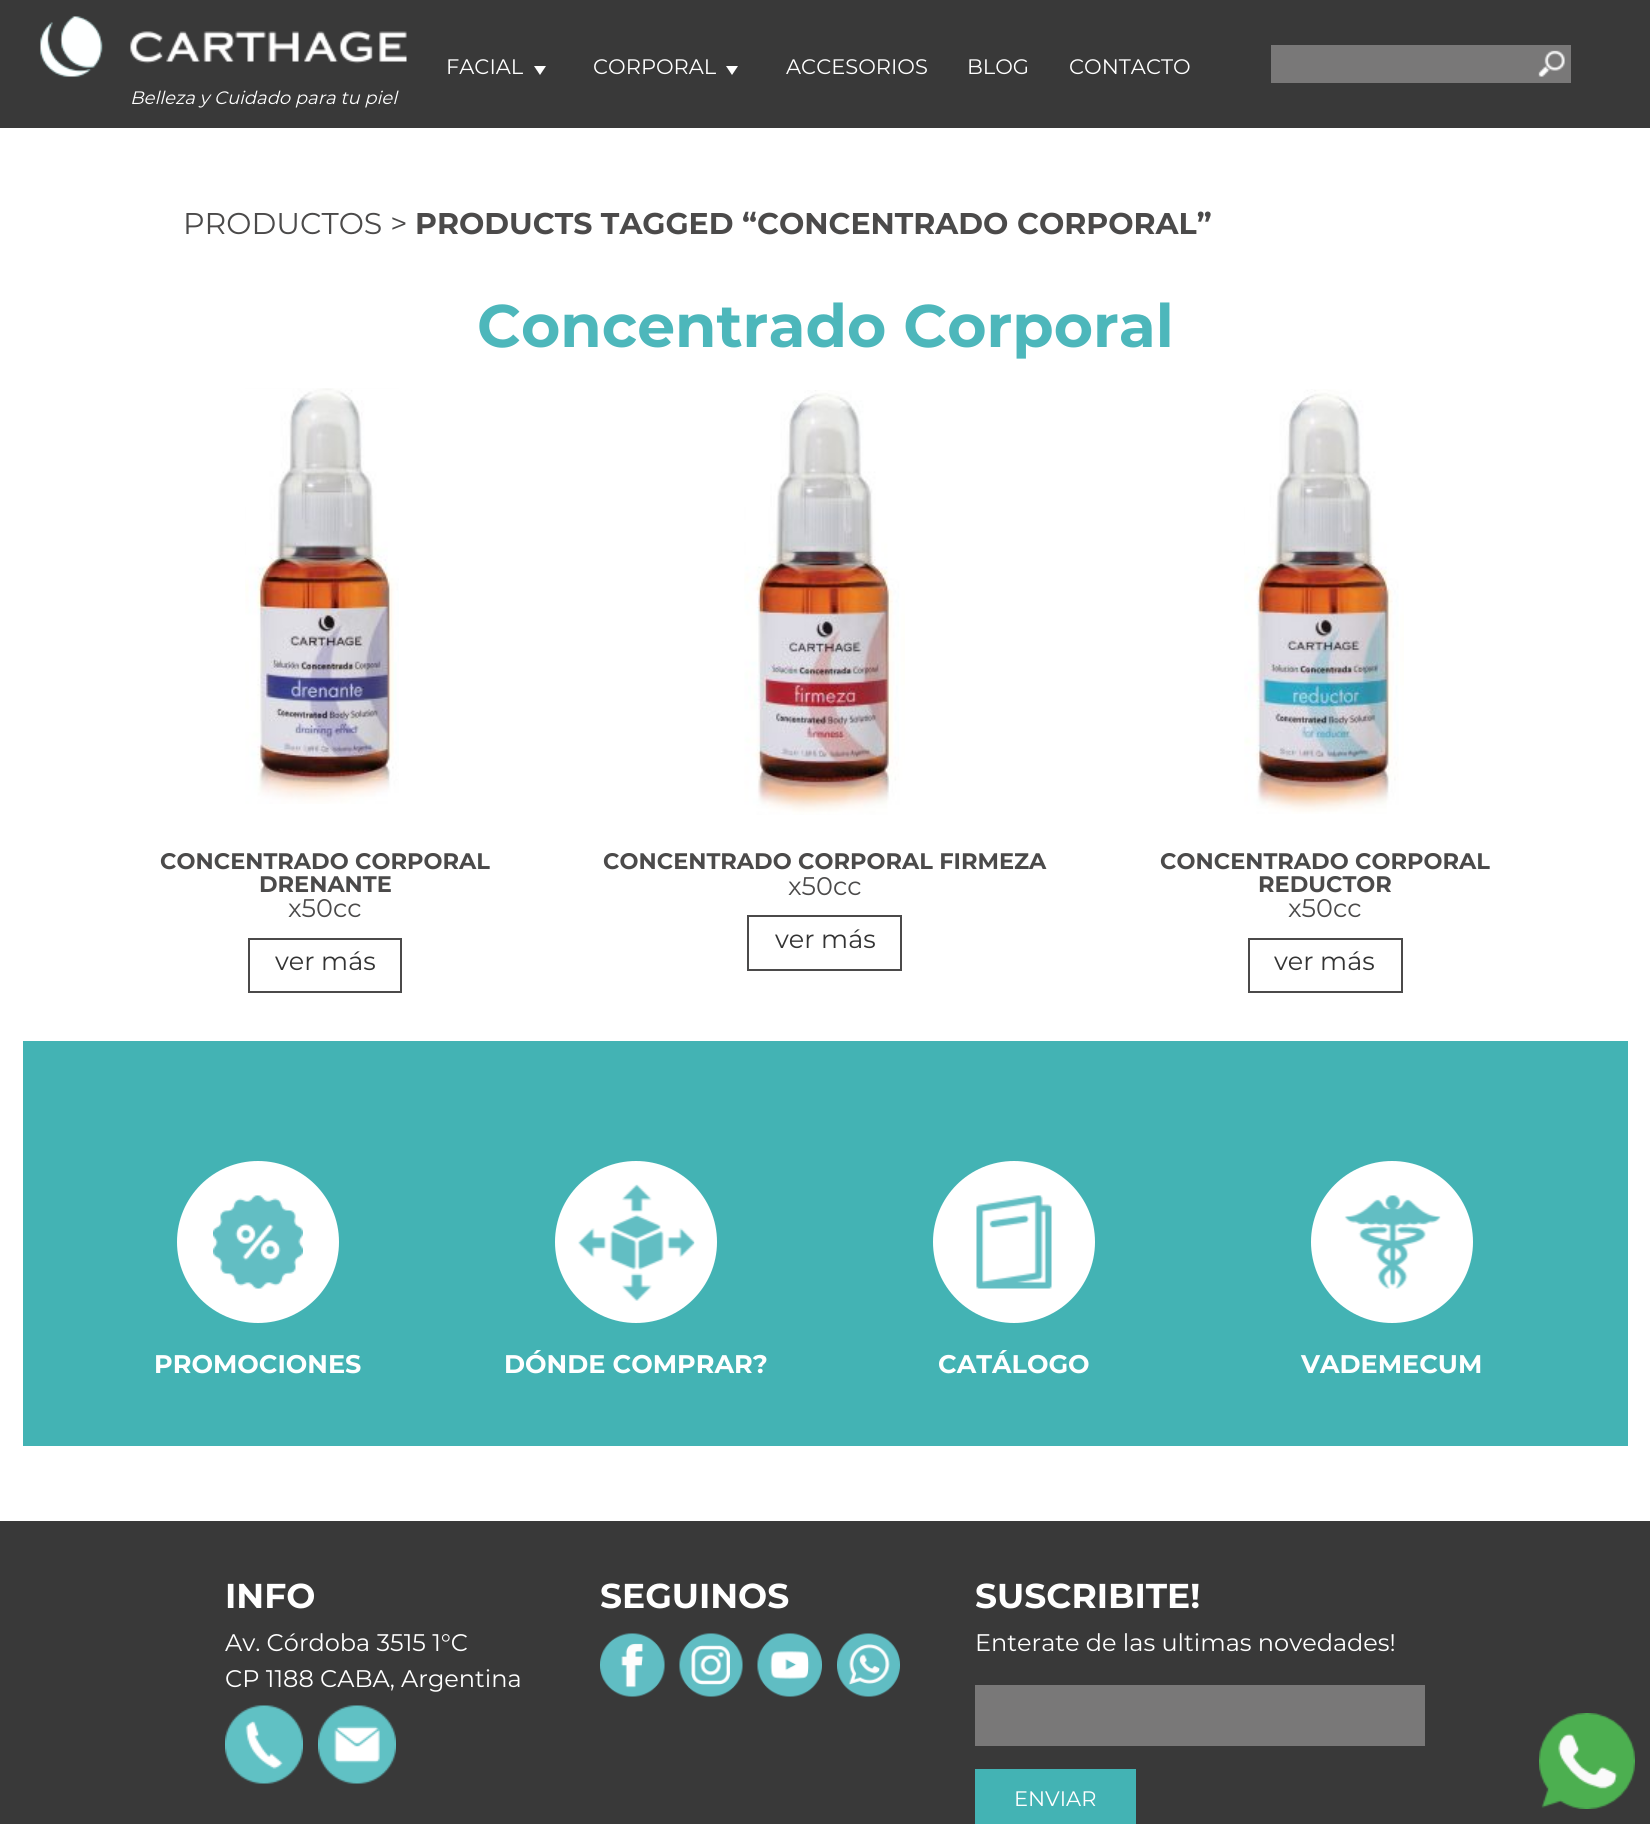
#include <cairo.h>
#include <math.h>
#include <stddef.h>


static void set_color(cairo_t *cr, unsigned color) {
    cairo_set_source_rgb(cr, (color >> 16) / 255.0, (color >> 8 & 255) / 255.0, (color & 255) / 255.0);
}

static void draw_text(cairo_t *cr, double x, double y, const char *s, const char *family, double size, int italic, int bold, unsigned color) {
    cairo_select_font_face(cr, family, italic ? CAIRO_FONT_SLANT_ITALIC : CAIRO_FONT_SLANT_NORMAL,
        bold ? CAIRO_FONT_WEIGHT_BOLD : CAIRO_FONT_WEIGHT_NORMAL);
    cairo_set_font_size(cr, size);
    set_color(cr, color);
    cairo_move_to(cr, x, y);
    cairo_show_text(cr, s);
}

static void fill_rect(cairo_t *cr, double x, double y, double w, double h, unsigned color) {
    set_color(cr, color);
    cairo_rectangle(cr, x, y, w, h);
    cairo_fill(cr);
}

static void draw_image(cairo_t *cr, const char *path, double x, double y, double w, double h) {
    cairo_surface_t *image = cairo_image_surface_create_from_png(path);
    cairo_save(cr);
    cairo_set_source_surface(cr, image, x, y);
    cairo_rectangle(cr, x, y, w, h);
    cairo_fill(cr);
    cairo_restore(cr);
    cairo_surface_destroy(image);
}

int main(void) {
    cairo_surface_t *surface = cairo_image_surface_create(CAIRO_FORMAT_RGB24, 1650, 1824);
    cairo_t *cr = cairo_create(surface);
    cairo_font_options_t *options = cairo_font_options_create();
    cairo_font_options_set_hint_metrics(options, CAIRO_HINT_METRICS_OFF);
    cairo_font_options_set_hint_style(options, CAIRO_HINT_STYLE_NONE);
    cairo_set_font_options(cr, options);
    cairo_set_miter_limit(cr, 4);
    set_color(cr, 0xFFFFFF);
    cairo_paint(cr);
    fill_rect(cr, 0, 0, 1650, 128, 0x393939);
    draw_text(cr, 446, 74, "FACIAL", "Montserrat", 21, 0, 0, 0xFFFFFF);
    cairo_new_path(cr);
    cairo_move_to(cr, 546, 66);
    cairo_line_to(cr, 540, 75);
    cairo_line_to(cr, 534, 66);
    cairo_close_path(cr);
    cairo_fill(cr);
    draw_text(cr, 593, 74, "CORPORAL", "Montserrat", 21, 0, 0, 0xFFFFFF);
    cairo_new_path(cr);
    cairo_move_to(cr, 738, 66);
    cairo_line_to(cr, 732, 75);
    cairo_line_to(cr, 726, 66);
    cairo_close_path(cr);
    cairo_fill(cr);
    draw_text(cr, 786, 74, "ACCESORIOS", "Montserrat", 21, 0, 0, 0xFFFFFF);
    draw_text(cr, 967, 74, "BLOG", "Montserrat", 21, 0, 0, 0xFFFFFF);
    draw_text(cr, 1069, 74, "CONTACTO", "Montserrat", 21, 0, 0, 0xFFFFFF);
    fill_rect(cr, 1271, 45, 300, 38, 0x797878);
    draw_image(cr, "assets/img1.png", 1538, 50, 27, 27);
    draw_image(cr, "assets/img2.png", 40, 16, 367, 61);
    draw_text(cr, 130, 104, "Belleza y Cuidado para tu piel", "Montserrat", 18, 1, 0, 0xFFFFFF);
    draw_text(cr, 183, 234, "PRODUCTOS >", "Montserrat", 30, 0, 0, 0x4B4A4A);
    draw_text(cr, 415, 234, "PRODUCTS TAGGED “CONCENTRADO CORPORAL”", "Montserrat", 30, 0, 1, 0x4B4A4A);
    draw_text(cr, 477, 347, "Concentrado Corporal", "Montserrat", 60, 0, 1, 0x4DB7BB);
    draw_image(cr, "assets/img3.png", 245, 388, 154, 416);
    draw_text(cr, 160, 869, "CONCENTRADO CORPORAL", "Montserrat", 22.5, 0, 1, 0x4B4A4A);
    draw_text(cr, 259, 892, "DRENANTE", "Montserrat", 22.5, 0, 1, 0x4B4A4A);
    draw_text(cr, 288, 917, "x50cc", "Montserrat", 25.5, 0, 0, 0x4B4A4A);
    cairo_rectangle(cr, 249, 939, 152, 53);
    cairo_stroke(cr);
    draw_text(cr, 275, 970, "ver más", "Montserrat", 25.5, 0, 0, 0x333333);
    draw_image(cr, "assets/img4.png", 744, 390, 161, 425);
    draw_text(cr, 603, 869, "CONCENTRADO CORPORAL FIRMEZA", "Montserrat", 22.5, 0, 1, 0x4B4A4A);
    draw_text(cr, 788, 895, "x50cc", "Montserrat", 25.5, 0, 0, 0x4B4A4A);
    cairo_rectangle(cr, 748, 916, 153, 54);
    cairo_stroke(cr);
    draw_text(cr, 775, 948, "ver más", "Montserrat", 25.5, 0, 0, 0x333333);
    draw_image(cr, "assets/img5.png", 1244, 389, 160, 425);
    draw_text(cr, 1160, 869, "CONCENTRADO CORPORAL", "Montserrat", 22.5, 0, 1, 0x4B4A4A);
    draw_text(cr, 1258, 892, "REDUCTOR", "Montserrat", 22.5, 0, 1, 0x4B4A4A);
    draw_text(cr, 1288, 917, "x50cc", "Montserrat", 25.5, 0, 0, 0x4B4A4A);
    cairo_rectangle(cr, 1249, 939, 153, 53);
    cairo_stroke(cr);
    draw_text(cr, 1274, 970, "ver más", "Montserrat", 25.5, 0, 0, 0x333333);
    fill_rect(cr, 23, 1041, 1605, 405, 0x43B3B4);
    set_color(cr, 0xFFFFFF);
    cairo_new_path(cr);
    cairo_arc(cr, 258, 1242, 81, 0, 2 * M_PI);
    cairo_fill(cr);
    draw_image(cr, "assets/img6.png", 213, 1195, 90, 94);
    draw_text(cr, 154, 1373, "PROMOCIONES", "Montserrat", 25.5, 0, 1, 0xFFFFFF);
    cairo_new_path(cr);
    cairo_arc(cr, 636, 1242, 81, 0, 2 * M_PI);
    cairo_fill(cr);
    draw_image(cr, "assets/img7.png", 578, 1184, 117, 117);
    draw_text(cr, 504, 1373, "DÓNDE COMPRAR?", "Montserrat", 25.5, 0, 1, 0xFFFFFF);
    cairo_new_path(cr);
    cairo_arc(cr, 1014, 1242, 81, 0, 2 * M_PI);
    cairo_fill(cr);
    draw_image(cr, "assets/img8.png", 976, 1195, 76, 94);
    draw_text(cr, 938, 1373, "CATÁLOGO", "Montserrat", 25.5, 0, 1, 0xFFFFFF);
    cairo_new_path(cr);
    cairo_arc(cr, 1392, 1242, 81, 0, 2 * M_PI);
    cairo_fill(cr);
    draw_image(cr, "assets/img9.png", 1344, 1195, 97, 94);
    draw_text(cr, 1301, 1373, "VADEMECUM", "Montserrat", 25.5, 0, 1, 0xFFFFFF);
    fill_rect(cr, 0, 1521, 1650, 303, 0x393939);
    draw_text(cr, 225, 1608, "INFO", "Montserrat", 34.5, 0, 1, 0xFFFFFF);
    draw_text(cr, 225, 1651, "Av. Córdoba 3515 1°C", "Montserrat", 24, 0, 0, 0xFFFFFF);
    draw_text(cr, 225, 1687, "CP 1188 CABA, Argentina", "Montserrat", 24, 0, 0, 0xFFFFFF);
    draw_image(cr, "assets/img10.png", 225, 1705, 78, 79);
    draw_image(cr, "assets/img11.png", 318, 1705, 78, 79);
    draw_text(cr, 600, 1608, "SEGUINOS", "Montserrat", 34.5, 0, 1, 0xFFFFFF);
    draw_image(cr, "assets/img12.png", 600, 1633, 65, 64);
    draw_image(cr, "assets/img13.png", 679, 1633, 64, 64);
    draw_image(cr, "assets/img14.png", 757, 1633, 65, 64);
    draw_image(cr, "assets/img15.png", 837, 1633, 63, 64);
    draw_text(cr, 975, 1608, "SUSCRIBITE!", "Montserrat", 34.5, 0, 1, 0xFFFFFF);
    draw_text(cr, 975, 1651, "Enterate de las ultimas novedades!", "Montserrat", 24, 0, 0, 0xFFFFFF);
    fill_rect(cr, 975, 1685, 450, 61, 0x797878);
    fill_rect(cr, 975, 1769, 161, 55, 0x43B3B4);
    draw_text(cr, 1014, 1806, "ENVIAR", "Montserrat", 21, 0, 0, 0xFFFFFF);
    draw_image(cr, "assets/img16.png", 1539, 1713, 96, 96);
    cairo_surface_write_to_png(surface, "output.png");
    cairo_font_options_destroy(options);
    cairo_destroy(cr);
    cairo_surface_destroy(surface);
    return 0;
}
